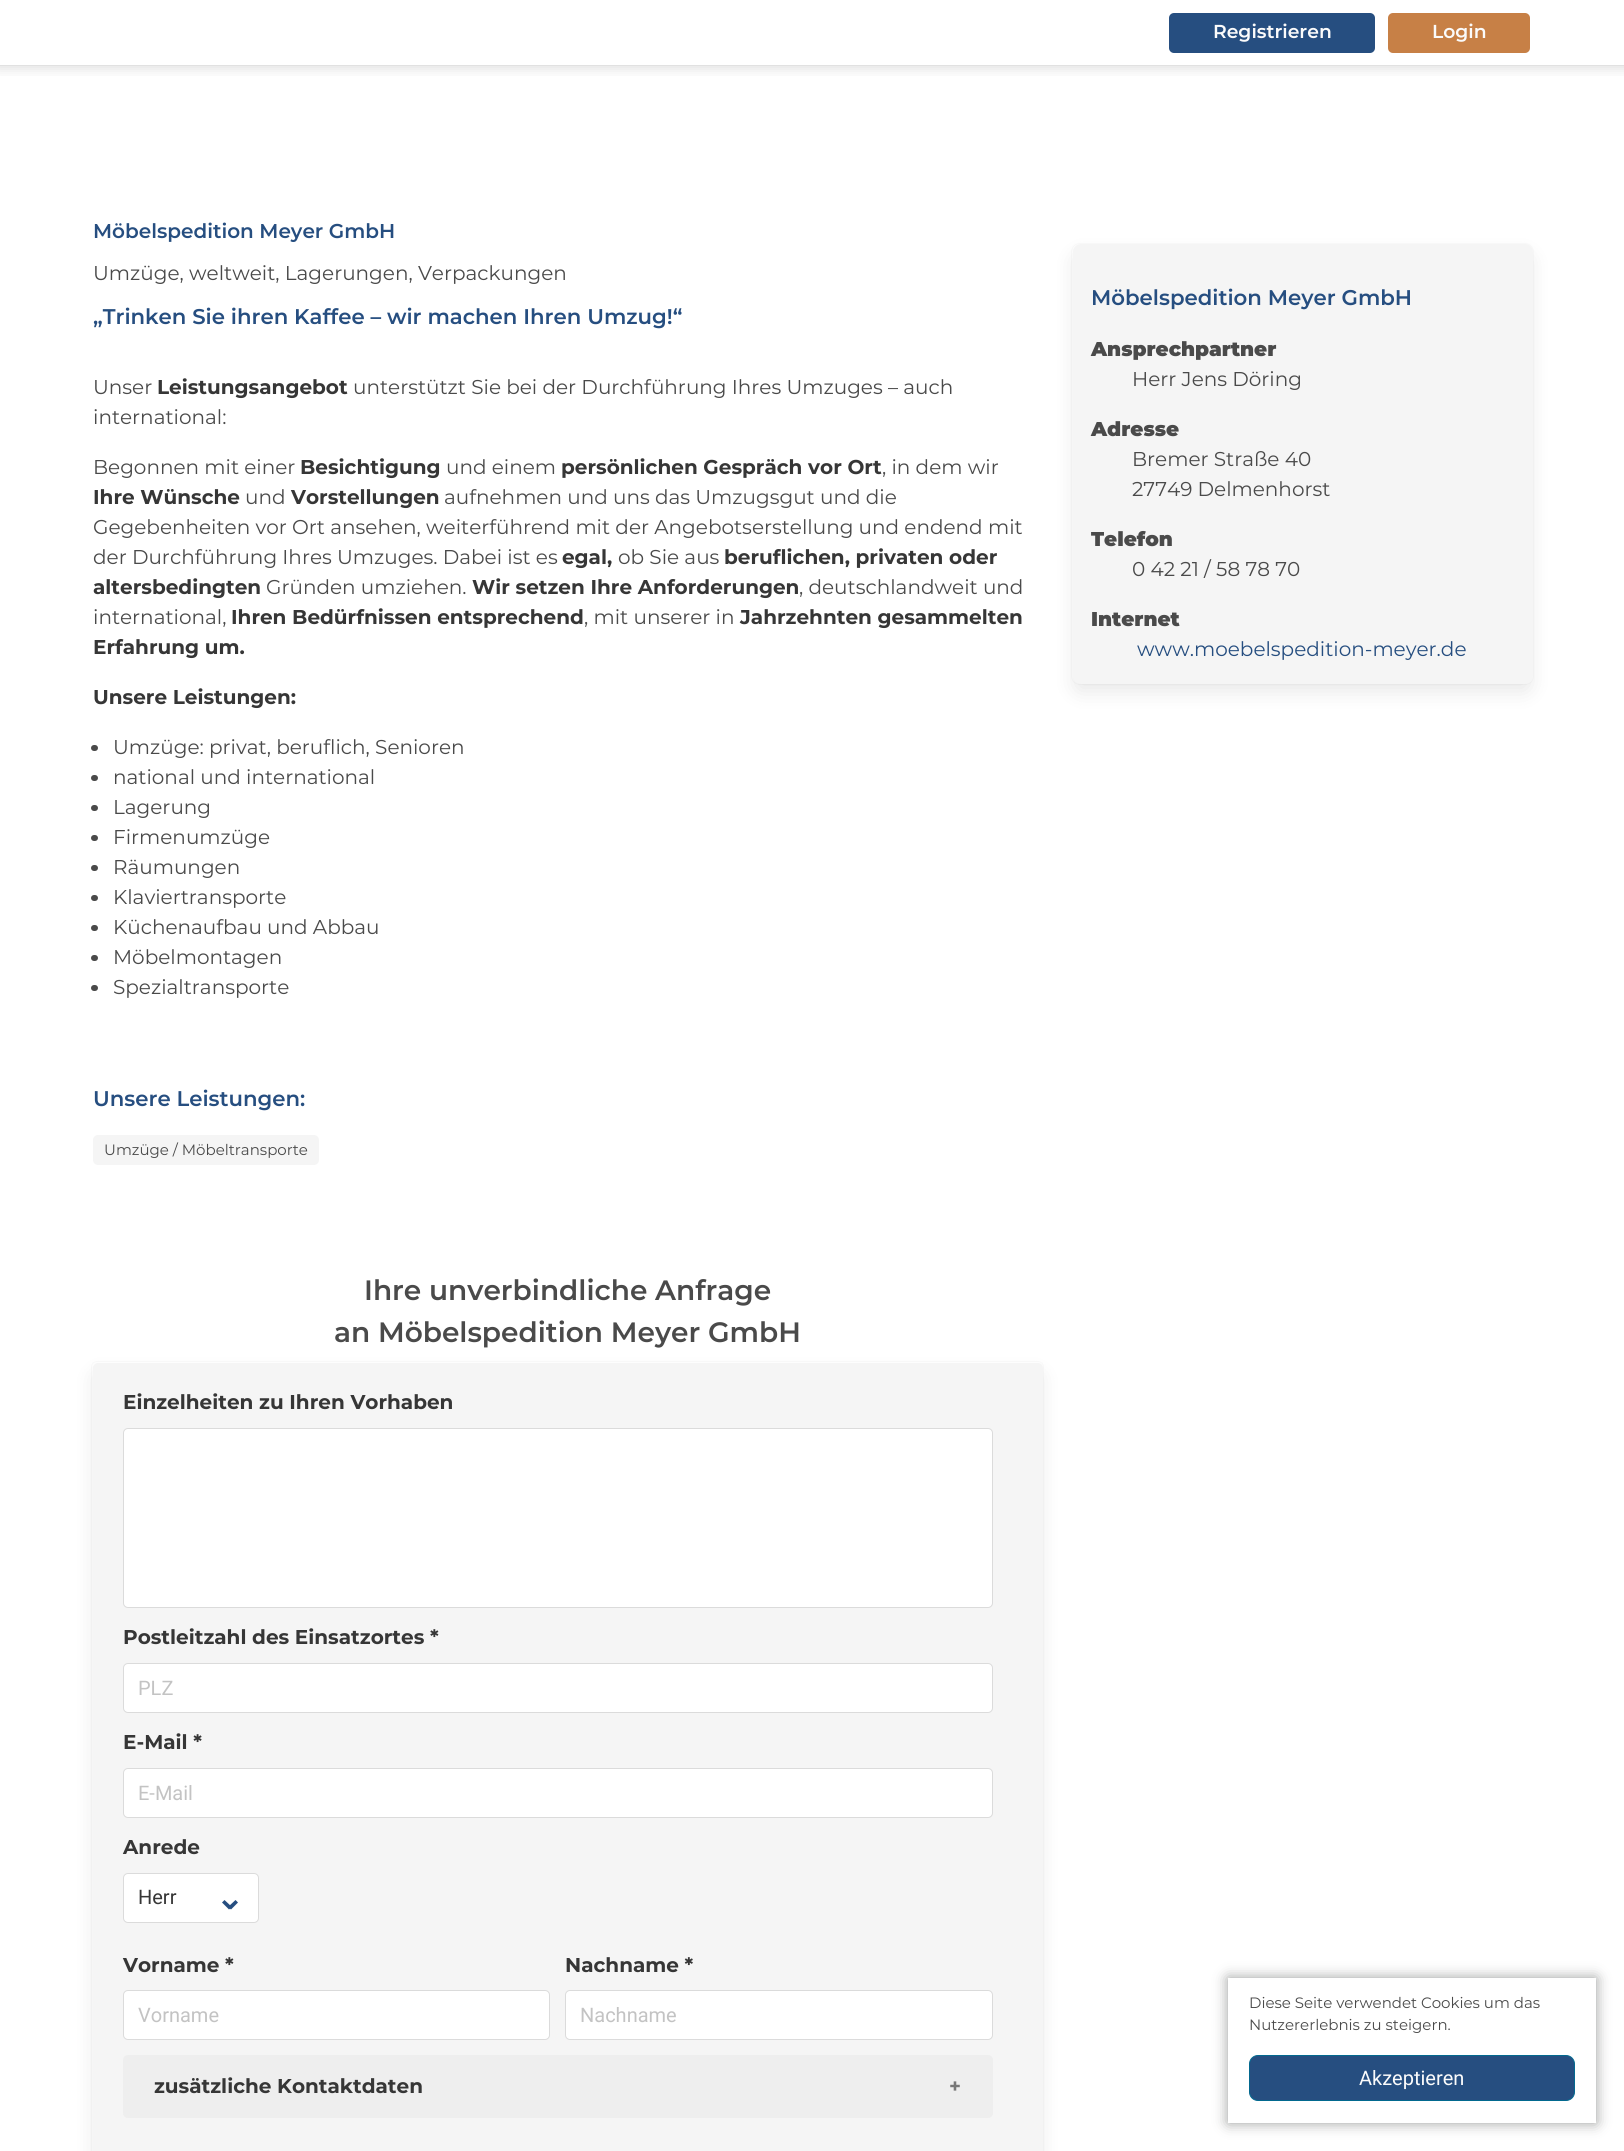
#include <cairo.h>
#include <math.h>
#include <stddef.h>


static void set_color(cairo_t *cr, unsigned color) {
    cairo_set_source_rgb(cr, (color >> 16) / 255.0, (color >> 8 & 255) / 255.0, (color & 255) / 255.0);
}

static void draw_text(cairo_t *cr, double x, double y, const char *s, const char *family, double size, int italic, int bold, unsigned color) {
    cairo_select_font_face(cr, family, italic ? CAIRO_FONT_SLANT_ITALIC : CAIRO_FONT_SLANT_NORMAL,
        bold ? CAIRO_FONT_WEIGHT_BOLD : CAIRO_FONT_WEIGHT_NORMAL);
    cairo_set_font_size(cr, size);
    set_color(cr, color);
    cairo_move_to(cr, x, y);
    cairo_show_text(cr, s);
}

static void fill_rect(cairo_t *cr, double x, double y, double w, double h, unsigned color) {
    set_color(cr, color);
    cairo_rectangle(cr, x, y, w, h);
    cairo_fill(cr);
}

static void rounded_rect(cairo_t *cr, double x, double y, double w, double h, double r) {
    cairo_new_sub_path(cr);
    cairo_arc(cr, x + w - r, y + h - r, r, 0, M_PI / 2);
    cairo_arc(cr, x + r, y + h - r, r, M_PI / 2, M_PI);
    cairo_arc(cr, x + r, y + r, r, M_PI, 1.5 * M_PI);
    cairo_arc(cr, x + w - r, y + r, r, 1.5 * M_PI, 2 * M_PI);
    cairo_close_path(cr);
}

static void draw_shadow(cairo_t *cr, double x, double y, double w, double h, double r, double blur, double alpha) {
    cairo_push_group_with_content(cr, CAIRO_CONTENT_ALPHA);
    cairo_set_operator(cr, CAIRO_OPERATOR_SOURCE);
    for (int i = 15; i >= -15 && fmin(w, h) + blur * i / 3 > 0; i -= 2) {
        double e = blur * i / 6;
        cairo_set_source_rgba(cr, 0, 0, 0, alpha * erfc((i - 1) / 8.5) / 2);
        rounded_rect(cr, x - e, y - e, w + 2 * e, h + 2 * e, fmax(0, fmin(r + e + blur * .6, fmin(w, h) / 2 + e)));
        cairo_fill(cr);
    }
    cairo_pattern_t *soft = cairo_pop_group(cr);
    cairo_mask(cr, soft);
    cairo_pattern_destroy(soft);
}

int main(void) {
    cairo_surface_t *surface = cairo_image_surface_create(CAIRO_FORMAT_RGB24, 1624, 2151);
    cairo_t *cr = cairo_create(surface);
    cairo_font_options_t *options = cairo_font_options_create();
    cairo_font_options_set_hint_metrics(options, CAIRO_HINT_METRICS_OFF);
    cairo_font_options_set_hint_style(options, CAIRO_HINT_STYLE_NONE);
    cairo_set_font_options(cr, options);
    cairo_set_miter_limit(cr, 4);
    set_color(cr, 0xFFFFFF);
    cairo_paint(cr);
    cairo_save(cr);
    cairo_rectangle(cr, 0, 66, 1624, 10);
    cairo_clip(cr);
    set_color(cr, 0x393939);
    draw_shadow(cr, -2, -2, 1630, 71, 0, 6, 0.15);
    cairo_restore(cr);
    fill_rect(cr, 0, 65, 1624, 1, 0xE1E1E1);
    set_color(cr, 0x264E80);
    rounded_rect(cr, 1169, 13, 206, 40, 5);
    cairo_fill(cr);
    draw_text(cr, 1213, 38, "Registrieren", "Montserrat SemiBold", 18.75, 0, 0, 0xFBFBFB);
    set_color(cr, 0xC78046);
    rounded_rect(cr, 1388, 13, 142, 40, 5);
    cairo_fill(cr);
    draw_text(cr, 1432, 38, "Login", "Montserrat SemiBold", 18.75, 0, 0, 0xFBFBFB);
    draw_text(cr, 93, 238, "Möbelspedition Meyer GmbH", "Montserrat SemiBold", 20, 0, 0, 0x264E80);
    draw_text(cr, 93, 280, "Umzüge, weltweit, Lagerungen, Verpackungen", "Montserrat", 20, 0, 0, 0x4A4A4A);
    draw_text(cr, 93, 324, "„Trinken Sie ihren Kaffee – wir machen Ihren Umzug!“", "Montserrat SemiBold", 21.25, 0, 0, 0x264E80);
    draw_text(cr, 93, 394, "Unser", "Montserrat", 20, 0, 0, 0x4A4A4A);
    draw_text(cr, 157, 394, "Leistungsangebot", "Montserrat", 20, 0, 1, 0x363636);
    draw_text(cr, 353, 394, "unterstützt Sie bei der Durchführung Ihres Umzuges – auch", "Montserrat", 20, 0, 0, 0x4A4A4A);
    draw_text(cr, 93, 424, "international:", "Montserrat", 20, 0, 0, 0x4A4A4A);
    draw_text(cr, 93, 474, "Begonnen mit einer", "Montserrat", 20, 0, 0, 0x4A4A4A);
    draw_text(cr, 300, 474, "Besichtigung", "Montserrat", 20, 0, 1, 0x363636);
    draw_text(cr, 446, 474, "und einem", "Montserrat", 20, 0, 0, 0x4A4A4A);
    draw_text(cr, 561, 474, "persönlichen Gespräch vor Ort", "Montserrat", 20, 0, 1, 0x363636);
    draw_text(cr, 882, 474, ", in dem wir", "Montserrat", 20, 0, 0, 0x4A4A4A);
    draw_text(cr, 93, 504, "Ihre Wünsche", "Montserrat", 20, 0, 1, 0x363636);
    draw_text(cr, 245, 504, "und", "Montserrat", 20, 0, 0, 0x4A4A4A);
    draw_text(cr, 291, 504, "Vorstellungen", "Montserrat", 20, 0, 1, 0x363636);
    draw_text(cr, 444, 504, "aufnehmen und uns das Umzugsgut und die", "Montserrat", 20, 0, 0, 0x4A4A4A);
    draw_text(cr, 93, 534, "Gegebenheiten vor Ort ansehen, weiterführend mit der Angebotserstellung und endend mit", "Montserrat", 20, 0, 0, 0x4A4A4A);
    draw_text(cr, 93, 564, "der Durchführung Ihres Umzuges. Dabei ist es", "Montserrat", 20, 0, 0, 0x4A4A4A);
    draw_text(cr, 562, 564, "egal,", "Montserrat", 20, 0, 1, 0x363636);
    draw_text(cr, 618, 564, "ob Sie aus", "Montserrat", 20, 0, 0, 0x4A4A4A);
    draw_text(cr, 724, 564, "beruflichen, privaten oder", "Montserrat", 20, 0, 1, 0x363636);
    draw_text(cr, 93, 594, "altersbedingten", "Montserrat", 20, 0, 1, 0x363636);
    draw_text(cr, 266, 594, "Gründen umziehen.", "Montserrat", 20, 0, 0, 0x4A4A4A);
    draw_text(cr, 472, 594, "Wir setzen Ihre Anforderungen", "Montserrat", 20, 0, 1, 0x363636);
    draw_text(cr, 799, 594, ", deutschlandweit und", "Montserrat", 20, 0, 0, 0x4A4A4A);
    draw_text(cr, 93, 624, "international,", "Montserrat", 20, 0, 0, 0x4A4A4A);
    draw_text(cr, 231, 624, "Ihren Bedürfnissen entsprechend", "Montserrat", 20, 0, 1, 0x363636);
    draw_text(cr, 584, 624, ", mit unserer in", "Montserrat", 20, 0, 0, 0x4A4A4A);
    draw_text(cr, 740, 624, "Jahrzehnten gesammelten", "Montserrat", 20, 0, 1, 0x363636);
    draw_text(cr, 93, 654, "Erfahrung um.", "Montserrat", 20, 0, 1, 0x363636);
    draw_text(cr, 93, 704, "Unsere Leistungen:", "Montserrat", 20, 0, 1, 0x363636);
    set_color(cr, 0x4A4A4A);
    rounded_rect(cr, 91, 745, 7, 6, 3);
    cairo_fill(cr);
    draw_text(cr, 113, 754, "Umzüge: privat, beruflich, Senioren", "Montserrat", 20, 0, 0, 0x4A4A4A);
    rounded_rect(cr, 91, 775, 7, 6, 3);
    cairo_fill(cr);
    draw_text(cr, 113, 784, "national und international", "Montserrat", 20, 0, 0, 0x4A4A4A);
    rounded_rect(cr, 91, 805, 7, 6, 3);
    cairo_fill(cr);
    draw_text(cr, 113, 814, "Lagerung", "Montserrat", 20, 0, 0, 0x4A4A4A);
    rounded_rect(cr, 91, 835, 7, 6, 3);
    cairo_fill(cr);
    draw_text(cr, 113, 844, "Firmenumzüge", "Montserrat", 20, 0, 0, 0x4A4A4A);
    rounded_rect(cr, 91, 865, 7, 6, 3);
    cairo_fill(cr);
    draw_text(cr, 113, 874, "Räumungen", "Montserrat", 20, 0, 0, 0x4A4A4A);
    rounded_rect(cr, 91, 895, 7, 6, 3);
    cairo_fill(cr);
    draw_text(cr, 113, 904, "Klaviertransporte", "Montserrat", 20, 0, 0, 0x4A4A4A);
    rounded_rect(cr, 91, 925, 7, 6, 3);
    cairo_fill(cr);
    draw_text(cr, 113, 934, "Küchenaufbau und Abbau", "Montserrat", 20, 0, 0, 0x4A4A4A);
    rounded_rect(cr, 91, 955, 7, 6, 3);
    cairo_fill(cr);
    draw_text(cr, 113, 964, "Möbelmontagen", "Montserrat", 20, 0, 0, 0x4A4A4A);
    rounded_rect(cr, 91, 985, 7, 6, 3);
    cairo_fill(cr);
    draw_text(cr, 113, 994, "Spezialtransporte", "Montserrat", 20, 0, 0, 0x4A4A4A);
    draw_text(cr, 93, 1106, "Unsere Leistungen:", "Montserrat SemiBold", 21.25, 0, 0, 0x264E80);
    set_color(cr, 0xF5F5F5);
    rounded_rect(cr, 93, 1135, 226, 30, 5);
    cairo_fill(cr);
    draw_text(cr, 104, 1155, "Umzüge / Möbeltransporte", "Montserrat", 15, 0, 0, 0x4A4A4A);
    rounded_rect(cr, 1071.5, 243.5, 462, 441, 8.5);
    set_color(cr, 0xFAFAFA);
    cairo_set_line_width(cr, 1);
    cairo_stroke(cr);
    set_color(cr, 0x0A0A0A);
    draw_shadow(cr, 1075, 256, 455, 435, 5, 10, 0.1);
    set_color(cr, 0xF5F5F5);
    rounded_rect(cr, 1073, 244, 460, 440, 8);
    cairo_fill(cr);
    draw_text(cr, 1091, 305, "Möbelspedition Meyer GmbH", "Montserrat SemiBold", 21.25, 0, 0, 0x264E80);
    draw_text(cr, 1091, 356, "Ansprechpartner", "Montserrat Black", 20, 0, 0, 0x4A4A4A);
    draw_text(cr, 1132, 386, "Herr Jens Döring", "Montserrat", 20, 0, 0, 0x4A4A4A);
    draw_text(cr, 1091, 436, "Adresse", "Montserrat Black", 20, 0, 0, 0x4A4A4A);
    draw_text(cr, 1132, 466, "Bremer Straße 40", "Montserrat", 20, 0, 0, 0x4A4A4A);
    draw_text(cr, 1132, 496, "27749 Delmenhorst", "Montserrat", 20, 0, 0, 0x4A4A4A);
    draw_text(cr, 1091, 546, "Telefon", "Montserrat Black", 20, 0, 0, 0x4A4A4A);
    draw_text(cr, 1132, 576, "0 42 21 / 58 78 70", "Montserrat", 20, 0, 0, 0x4A4A4A);
    draw_text(cr, 1091, 626, "Internet", "Montserrat Black", 20, 0, 0, 0x4A4A4A);
    draw_text(cr, 1137, 656, "www.moebelspedition-meyer.de", "Montserrat", 20, 0, 0, 0x264E80);
    draw_text(cr, 364, 1300, "Ihre unverbindliche Anfrage", "Montserrat SemiBold", 28, 0, 0, 0x4A4A4A);
    draw_text(cr, 334, 1342, "an Möbelspedition Meyer GmbH", "Montserrat SemiBold", 28, 0, 0, 0x4A4A4A);
    rounded_rect(cr, 91.5, 1361.5, 952, 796, 5.5);
    set_color(cr, 0xFAFAFA);
    cairo_stroke(cr);
    set_color(cr, 0x0A0A0A);
    draw_shadow(cr, 95, 1375, 945, 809, 2.5, 10, 0.1);
    set_color(cr, 0xF5F5F5);
    rounded_rect(cr, 93, 1363, 950, 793, 5);
    cairo_fill(cr);
    draw_text(cr, 123, 1409, "Einzelheiten zu Ihren Vorhaben", "Montserrat", 20, 0, 1, 0x363636);
    set_color(cr, 0xFFFFFF);
    rounded_rect(cr, 123.5, 1428.5, 869, 179, 4.5);
    cairo_fill_preserve(cr);
    set_color(cr, 0xDBDBDB);
    cairo_stroke(cr);
    draw_text(cr, 123, 1644, "Postleitzahl des Einsatzortes *", "Montserrat", 20, 0, 1, 0x363636);
    set_color(cr, 0xFFFFFF);
    rounded_rect(cr, 123.5, 1663.5, 869, 49, 4.5);
    cairo_fill_preserve(cr);
    set_color(cr, 0xDBDBDB);
    cairo_stroke(cr);
    draw_text(cr, 138, 1695, "PLZ", "Roboto", 20, 0, 0, 0xC3C3C3);
    draw_text(cr, 123, 1749, "E-Mail *", "Montserrat", 20, 0, 1, 0x363636);
    set_color(cr, 0xFFFFFF);
    rounded_rect(cr, 123.5, 1768.5, 869, 49, 4.5);
    cairo_fill_preserve(cr);
    set_color(cr, 0xDBDBDB);
    cairo_stroke(cr);
    draw_text(cr, 138, 1800, "E-Mail", "Roboto", 20, 0, 0, 0xC3C3C3);
    draw_text(cr, 123, 1854, "Anrede", "Montserrat", 20, 0, 1, 0x363636);
    set_color(cr, 0xFFFFFF);
    rounded_rect(cr, 123.5, 1873.5, 135, 49, 4.5);
    cairo_fill_preserve(cr);
    set_color(cr, 0xDBDBDB);
    cairo_stroke(cr);
    draw_text(cr, 138, 1904, "Herr", "Roboto", 20, 0, 0, 0x363636);
    set_color(cr, 0x264E80);
    cairo_new_path(cr);
    cairo_move_to(cr, 228, 1907);
    cairo_line_to(cr, 235.5, 1900);
    cairo_line_to(cr, 238, 1902.5);
    cairo_line_to(cr, 231, 1909.5);
    cairo_close_path(cr);
    cairo_fill(cr);
    cairo_new_path(cr);
    cairo_move_to(cr, 222, 1902.5);
    cairo_line_to(cr, 224.5, 1900);
    cairo_line_to(cr, 232, 1907);
    cairo_line_to(cr, 229, 1909.5);
    cairo_close_path(cr);
    cairo_fill(cr);
    draw_text(cr, 123, 1972, "Vorname *", "Montserrat", 20, 0, 1, 0x363636);
    set_color(cr, 0xFFFFFF);
    rounded_rect(cr, 123.5, 1990.5, 426, 49, 4.5);
    cairo_fill_preserve(cr);
    set_color(cr, 0xDBDBDB);
    cairo_stroke(cr);
    draw_text(cr, 138, 2022, "Vorname", "Roboto", 20, 0, 0, 0xC3C3C3);
    draw_text(cr, 565, 1972, "Nachname *", "Montserrat", 20, 0, 1, 0x363636);
    set_color(cr, 0xFFFFFF);
    rounded_rect(cr, 565.5, 1990.5, 427, 49, 4.5);
    cairo_fill_preserve(cr);
    set_color(cr, 0xDBDBDB);
    cairo_stroke(cr);
    draw_text(cr, 580, 2022, "Nachname", "Roboto", 20, 0, 0, 0xC3C3C3);
    set_color(cr, 0xEEEEEE);
    rounded_rect(cr, 123, 2055, 870, 63, 5);
    cairo_fill(cr);
    draw_text(cr, 154, 2093, "zusätzliche Kontaktdaten", "Montserrat", 20, 0, 1, 0x363636);
    draw_text(cr, 949, 2093, "+", "Montserrat", 20, 0, 1, 0x777777);
    set_color(cr, 0x9A9C9B);
    draw_shadow(cr, 1228, 1978, 368, 145, 0, 7, 1);
    fill_rect(cr, 1228, 1978, 368, 145, 0xFFFFFF);
    draw_text(cr, 1249, 2008, "Diese Seite verwendet Cookies um das", "Montserrat", 15, 0, 0, 0x4A4A4A);
    draw_text(cr, 1249, 2030, "Nutzererlebnis zu steigern.", "Montserrat", 15, 0, 0, 0x4A4A4A);
    set_color(cr, 0x264E80);
    rounded_rect(cr, 1249.5, 2055.5, 325, 45, 8.5);
    cairo_fill_preserve(cr);
    set_color(cr, 0x02698F);
    cairo_stroke(cr);
    draw_text(cr, 1359, 2085, "Akzeptieren", "Roboto", 20, 0, 0, 0xFBFBFB);
    cairo_surface_write_to_png(surface, "output.png");
    cairo_font_options_destroy(options);
    cairo_destroy(cr);
    cairo_surface_destroy(surface);
    return 0;
}
